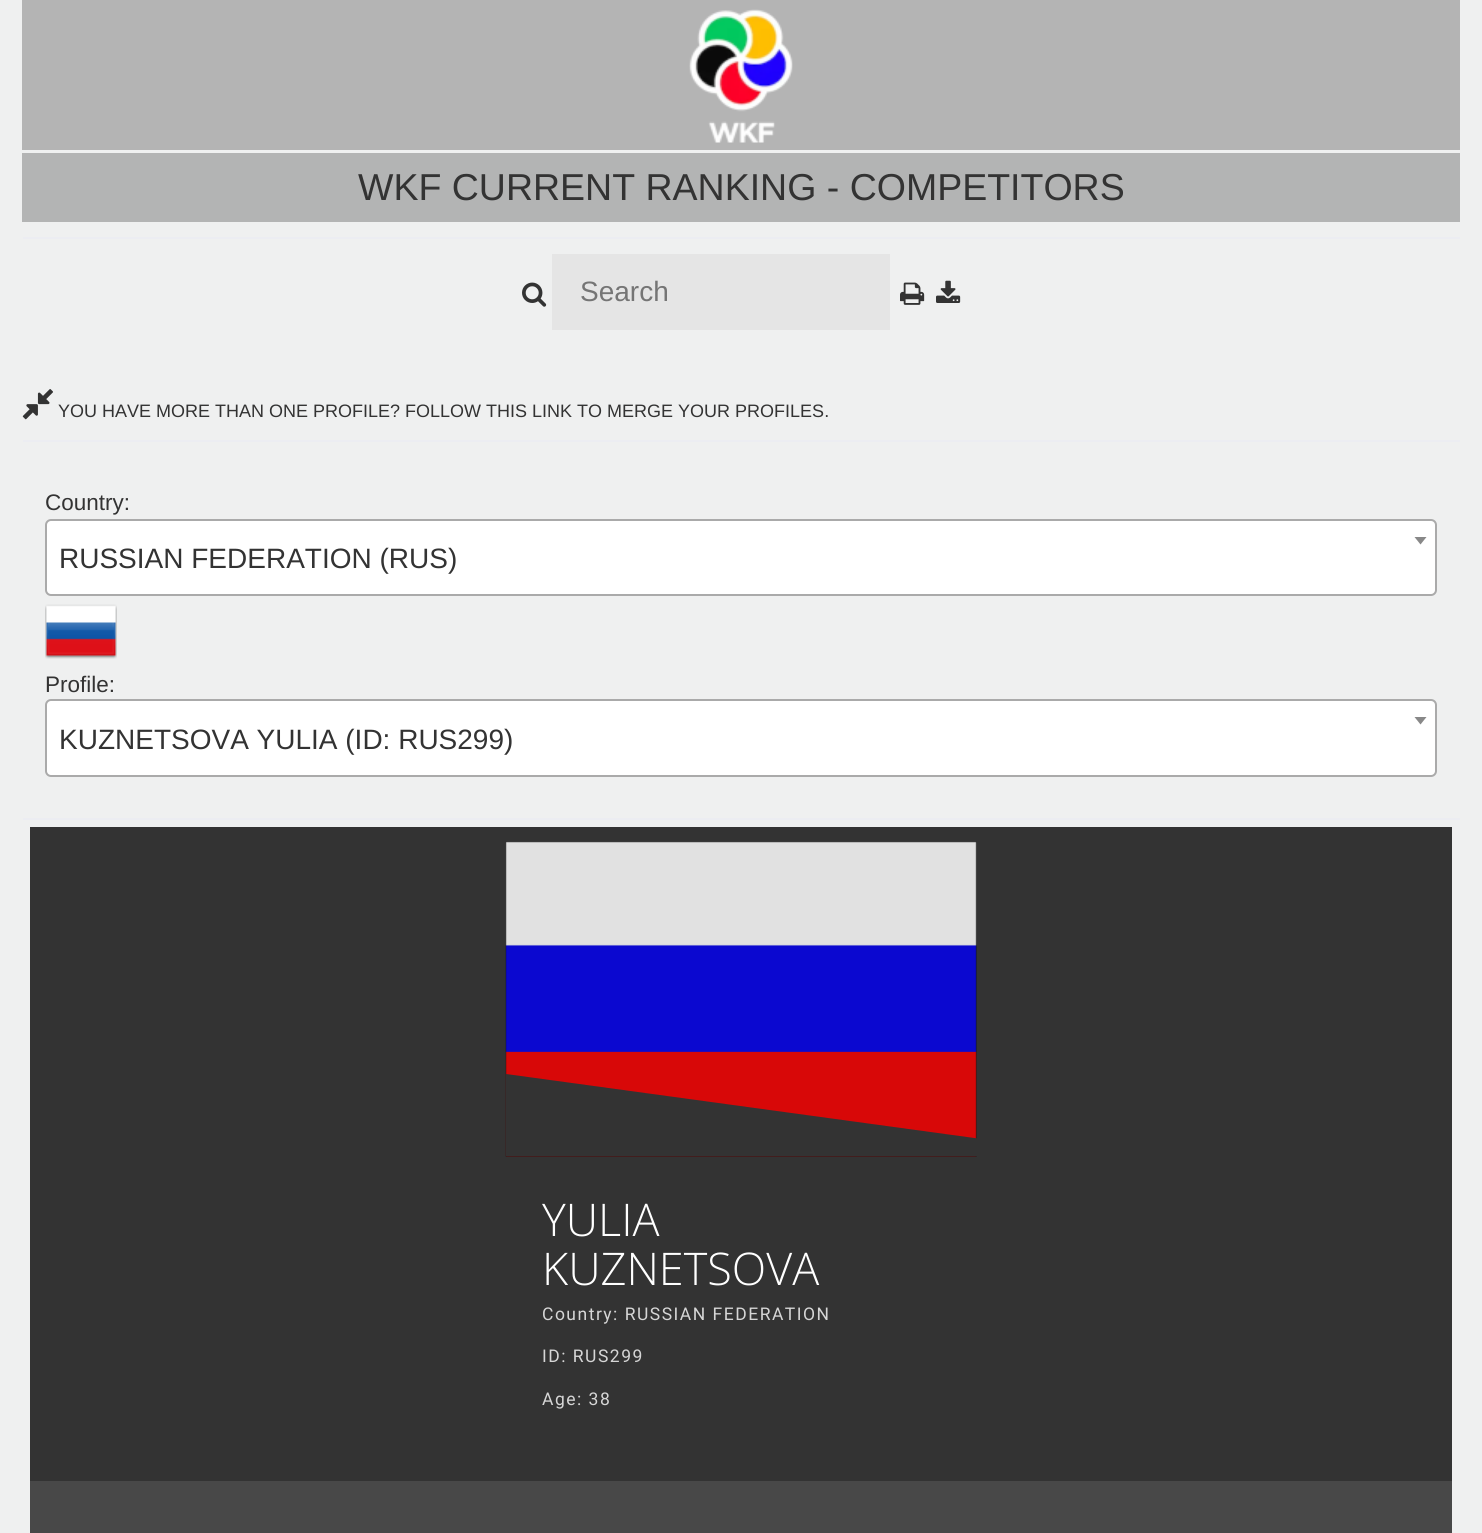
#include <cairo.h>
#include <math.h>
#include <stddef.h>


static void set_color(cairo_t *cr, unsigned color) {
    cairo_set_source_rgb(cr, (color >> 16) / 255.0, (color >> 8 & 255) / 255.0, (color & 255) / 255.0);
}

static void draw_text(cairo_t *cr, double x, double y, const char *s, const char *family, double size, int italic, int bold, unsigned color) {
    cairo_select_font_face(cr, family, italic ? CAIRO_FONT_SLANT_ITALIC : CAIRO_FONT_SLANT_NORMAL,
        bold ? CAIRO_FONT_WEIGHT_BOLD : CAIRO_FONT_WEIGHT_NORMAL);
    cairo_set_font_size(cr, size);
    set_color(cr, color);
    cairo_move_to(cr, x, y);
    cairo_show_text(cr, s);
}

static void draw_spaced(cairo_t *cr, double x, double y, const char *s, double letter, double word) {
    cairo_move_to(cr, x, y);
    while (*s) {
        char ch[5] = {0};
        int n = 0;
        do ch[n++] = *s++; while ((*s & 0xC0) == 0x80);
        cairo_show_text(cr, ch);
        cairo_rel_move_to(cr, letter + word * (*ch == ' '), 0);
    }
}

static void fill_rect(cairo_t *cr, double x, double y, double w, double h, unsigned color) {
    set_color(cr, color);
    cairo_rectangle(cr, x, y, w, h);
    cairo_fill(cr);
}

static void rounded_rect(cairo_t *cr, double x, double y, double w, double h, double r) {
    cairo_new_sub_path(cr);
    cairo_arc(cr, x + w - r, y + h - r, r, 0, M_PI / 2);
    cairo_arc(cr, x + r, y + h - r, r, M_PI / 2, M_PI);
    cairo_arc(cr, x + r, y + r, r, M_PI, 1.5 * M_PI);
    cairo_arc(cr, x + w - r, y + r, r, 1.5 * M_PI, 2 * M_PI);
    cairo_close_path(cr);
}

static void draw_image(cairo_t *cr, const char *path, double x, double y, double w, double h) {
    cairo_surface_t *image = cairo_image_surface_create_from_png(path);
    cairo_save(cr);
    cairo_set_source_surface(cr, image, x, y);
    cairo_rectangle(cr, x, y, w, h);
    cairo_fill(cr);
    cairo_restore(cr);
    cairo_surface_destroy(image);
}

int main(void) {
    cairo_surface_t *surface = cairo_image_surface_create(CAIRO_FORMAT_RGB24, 1482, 1533);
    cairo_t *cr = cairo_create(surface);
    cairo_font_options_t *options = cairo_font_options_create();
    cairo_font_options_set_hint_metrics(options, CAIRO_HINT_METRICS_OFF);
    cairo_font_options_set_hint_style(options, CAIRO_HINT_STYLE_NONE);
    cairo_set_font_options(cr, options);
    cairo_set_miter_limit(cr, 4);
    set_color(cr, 0xEFF0F0);
    cairo_paint(cr);
    fill_rect(cr, 22, 0, 1438, 150, 0xB4B4B4);
    draw_image(cr, "assets/img1.png", 689, 9, 104, 134);
    fill_rect(cr, 22, 153, 1438, 69, 0xB3B4B4);
    draw_text(cr, 358, 200, "WKF CURRENT RANKING - COMPETITORS", "Liberation Sans", 37.5, 0, 0, 0x333333);
    fill_rect(cr, 23, 237, 1437, 2, 0xECEDF2);
    draw_image(cr, "assets/img2.png", 522, 282, 25, 25);
    fill_rect(cr, 552, 254, 338, 76, 0xE5E5E5);
    draw_text(cr, 580, 301, "Search", "Liberation Sans", 28, 0, 0, 0x757575);
    draw_image(cr, "assets/img3.png", 900, 282, 25, 23);
    draw_image(cr, "assets/img4.png", 936, 280, 25, 23);
    draw_image(cr, "assets/img5.png", 22, 389, 31, 31);
    draw_text(cr, 58, 417, "YOU HAVE MORE THAN ONE PROFILE? FOLLOW THIS LINK TO MERGE YOUR PROFILES.", "Liberation Sans", 18, 0, 0, 0x333333);
    fill_rect(cr, 23, 440, 1437, 2, 0xECEDF2);
    draw_text(cr, 45, 510, "Country:", "Liberation Sans", 22.5, 0, 0, 0x333333);
    set_color(cr, 0xFFFFFF);
    rounded_rect(cr, 46, 520, 1390, 75, 5);
    cairo_fill_preserve(cr);
    set_color(cr, 0xAAAAAA);
    cairo_stroke(cr);
    set_color(cr, 0x888888);
    cairo_new_path(cr);
    cairo_move_to(cr, 1414.5, 537);
    cairo_line_to(cr, 1426.5, 537);
    cairo_line_to(cr, 1420.5, 544.5);
    cairo_close_path(cr);
    cairo_fill(cr);
    draw_text(cr, 59, 568, "RUSSIAN FEDERATION (RUS)", "Liberation Sans", 28, 0, 0, 0x333333);
    draw_image(cr, "assets/img6.png", 45, 604, 72, 55);
    draw_text(cr, 45, 692, "Profile:", "Liberation Sans", 22.5, 0, 0, 0x333333);
    set_color(cr, 0xFFFFFF);
    rounded_rect(cr, 46, 700, 1390, 76, 5);
    cairo_fill_preserve(cr);
    set_color(cr, 0xAAAAAA);
    cairo_stroke(cr);
    set_color(cr, 0x888888);
    cairo_new_path(cr);
    cairo_move_to(cr, 1414.5, 717);
    cairo_line_to(cr, 1426.5, 717);
    cairo_line_to(cr, 1420.5, 724.5);
    cairo_close_path(cr);
    cairo_fill(cr);
    draw_text(cr, 59, 749, "KUZNETSOVA YULIA (ID: RUS299)", "Liberation Sans", 28, 0, 0, 0x333333);
    fill_rect(cr, 23, 818, 1437, 2, 0xECEDF2);
    fill_rect(cr, 30, 827, 1422, 654, 0x333333);
    draw_image(cr, "assets/img7.png", 505, 841, 472, 316);
    cairo_save(cr);
    cairo_rectangle(cr, 506, 842, 472, 624);
    cairo_clip(cr);
    cairo_new_path(cr);
    cairo_move_to(cr, 506, 1156);
    cairo_line_to(cr, 506, 1074);
    cairo_line_to(cr, 1106, 1156);
    cairo_close_path(cr);
    cairo_fill(cr);
    cairo_restore(cr);
    draw_text(cr, 542, 1236, "YULIA", "Open Sans Light", 45, 0, 0, 0xFFFFFF);
    draw_text(cr, 542, 1285, "KUZNETSOVA", "Open Sans Light", 45, 0, 0, 0xFFFFFF);
    cairo_select_font_face(cr, "Roboto", CAIRO_FONT_SLANT_NORMAL, CAIRO_FONT_WEIGHT_NORMAL);
    cairo_set_font_size(cr, 17.5);
    set_color(cr, 0xD6D6D6);
    draw_spaced(cr, 542, 1320, "Country: RUSSIAN FEDERATION", 1.5, 0);
    draw_spaced(cr, 542, 1362, "ID: RUS299", 1.5, 0);
    draw_spaced(cr, 542, 1405, "Age: 38", 1.5, 0);
    fill_rect(cr, 30, 1481, 1422, 52, 0x484848);
    cairo_surface_write_to_png(surface, "output.png");
    cairo_font_options_destroy(options);
    cairo_destroy(cr);
    cairo_surface_destroy(surface);
    return 0;
}
